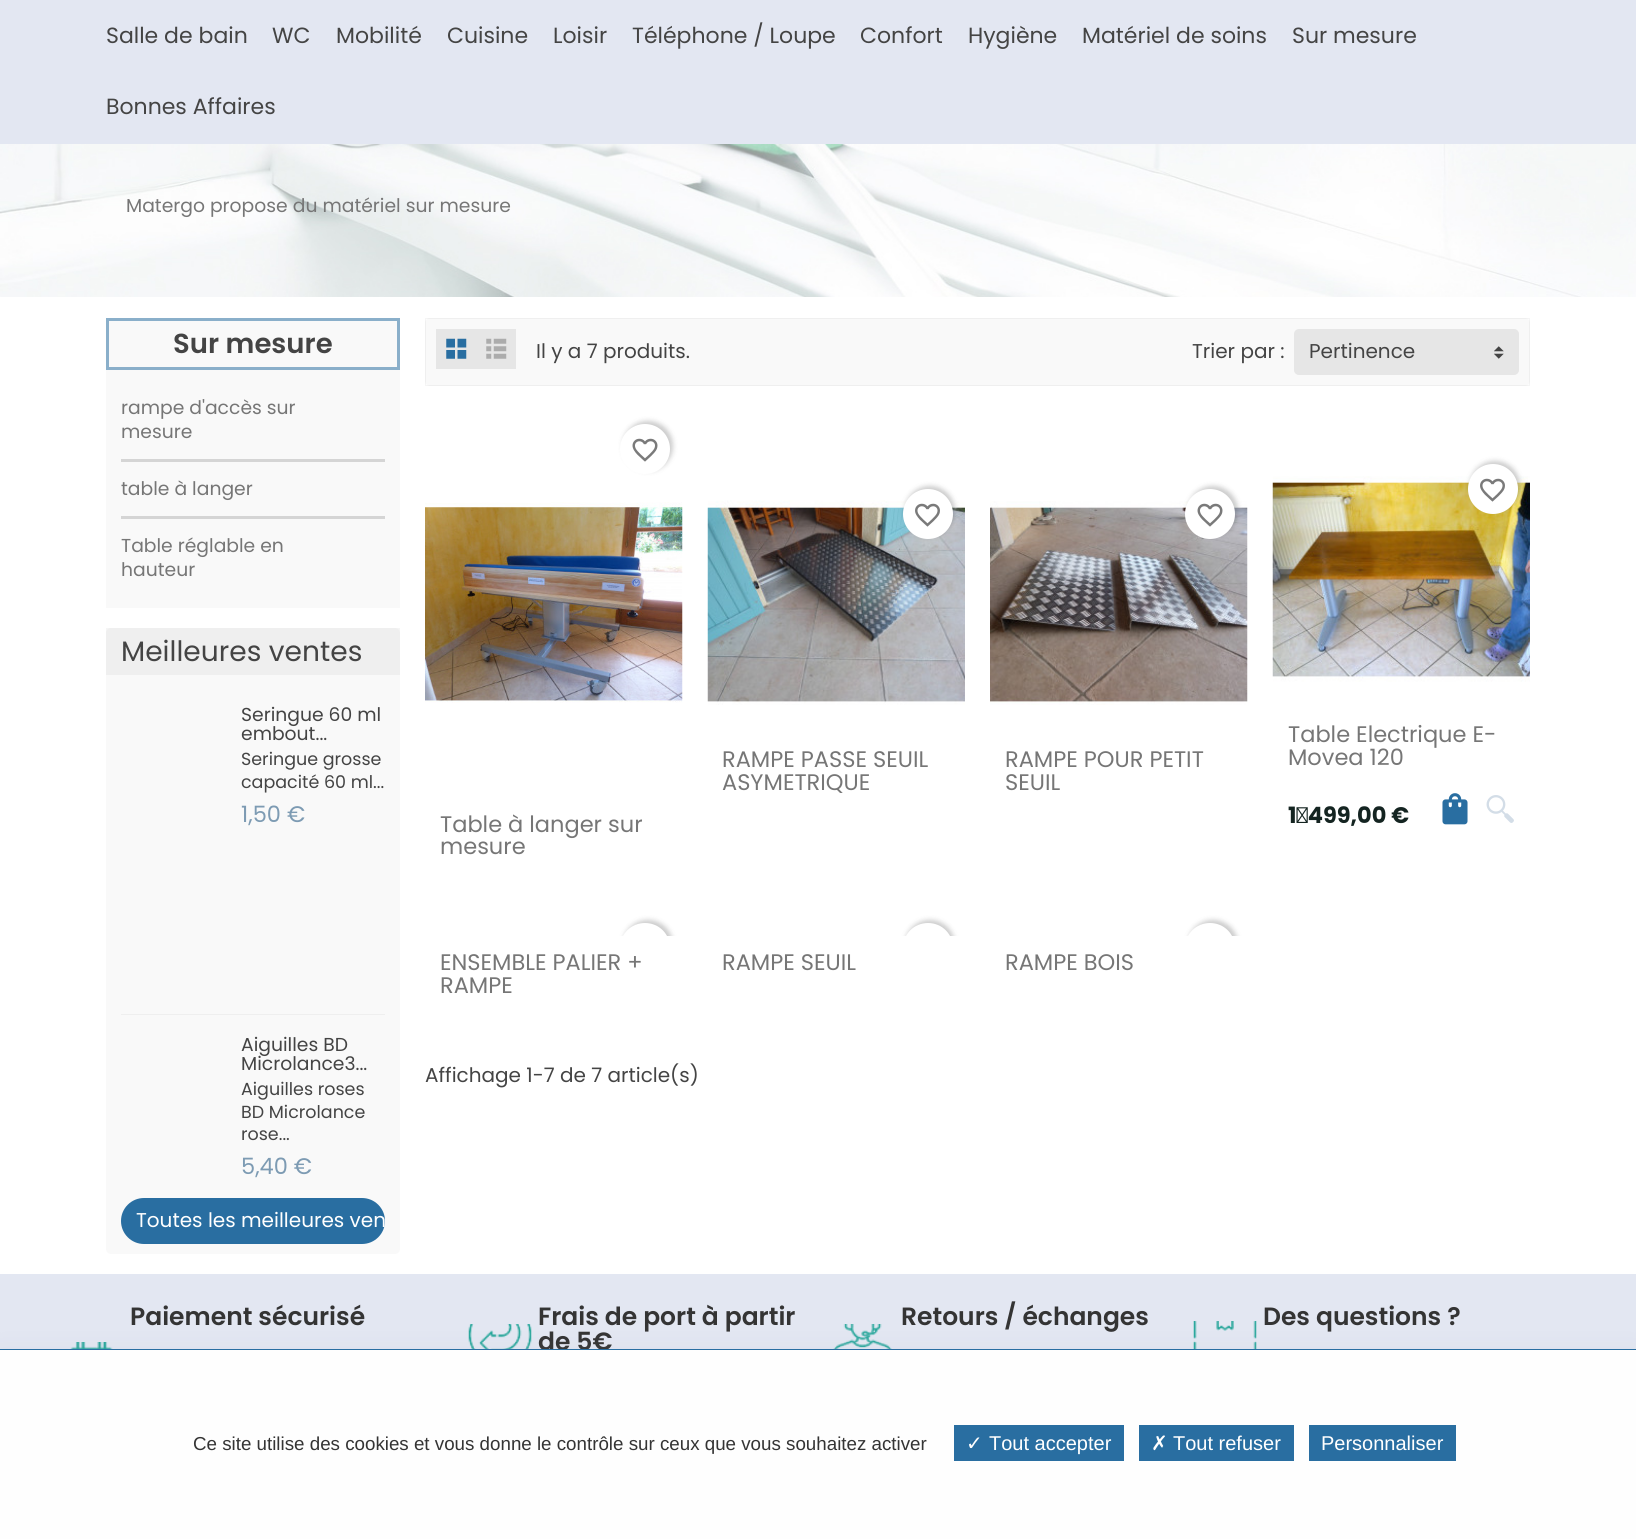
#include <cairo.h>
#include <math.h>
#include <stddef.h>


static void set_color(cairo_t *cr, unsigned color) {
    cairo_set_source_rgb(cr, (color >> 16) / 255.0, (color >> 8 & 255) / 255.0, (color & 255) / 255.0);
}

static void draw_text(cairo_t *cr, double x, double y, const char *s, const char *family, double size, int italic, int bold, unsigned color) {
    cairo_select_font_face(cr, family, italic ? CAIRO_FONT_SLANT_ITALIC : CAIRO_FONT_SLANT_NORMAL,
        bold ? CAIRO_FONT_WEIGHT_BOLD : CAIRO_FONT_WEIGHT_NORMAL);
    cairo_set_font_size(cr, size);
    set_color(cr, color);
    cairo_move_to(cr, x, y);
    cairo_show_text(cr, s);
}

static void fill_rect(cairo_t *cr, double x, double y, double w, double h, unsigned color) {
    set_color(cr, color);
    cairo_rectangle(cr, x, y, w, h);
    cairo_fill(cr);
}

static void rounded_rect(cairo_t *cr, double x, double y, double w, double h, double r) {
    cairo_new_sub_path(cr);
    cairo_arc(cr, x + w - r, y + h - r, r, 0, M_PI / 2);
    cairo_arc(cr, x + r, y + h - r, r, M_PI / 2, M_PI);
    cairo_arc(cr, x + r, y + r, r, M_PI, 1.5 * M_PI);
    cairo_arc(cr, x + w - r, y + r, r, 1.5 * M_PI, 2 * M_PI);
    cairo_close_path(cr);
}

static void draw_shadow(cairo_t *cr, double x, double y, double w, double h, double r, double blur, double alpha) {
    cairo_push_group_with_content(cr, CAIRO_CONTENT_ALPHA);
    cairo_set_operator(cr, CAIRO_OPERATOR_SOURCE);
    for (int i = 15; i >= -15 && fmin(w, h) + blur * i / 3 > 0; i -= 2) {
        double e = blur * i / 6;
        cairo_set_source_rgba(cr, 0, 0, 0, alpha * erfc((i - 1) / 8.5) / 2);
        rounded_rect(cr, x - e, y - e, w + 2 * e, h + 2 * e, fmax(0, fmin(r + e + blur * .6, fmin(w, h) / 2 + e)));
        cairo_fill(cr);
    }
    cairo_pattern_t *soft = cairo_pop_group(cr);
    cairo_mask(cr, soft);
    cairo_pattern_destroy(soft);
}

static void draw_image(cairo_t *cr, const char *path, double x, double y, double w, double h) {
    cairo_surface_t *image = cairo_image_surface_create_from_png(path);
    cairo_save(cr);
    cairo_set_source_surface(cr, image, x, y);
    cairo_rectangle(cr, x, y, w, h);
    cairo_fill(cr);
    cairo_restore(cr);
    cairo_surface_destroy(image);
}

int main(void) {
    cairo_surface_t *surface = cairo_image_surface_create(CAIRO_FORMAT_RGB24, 1636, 1539);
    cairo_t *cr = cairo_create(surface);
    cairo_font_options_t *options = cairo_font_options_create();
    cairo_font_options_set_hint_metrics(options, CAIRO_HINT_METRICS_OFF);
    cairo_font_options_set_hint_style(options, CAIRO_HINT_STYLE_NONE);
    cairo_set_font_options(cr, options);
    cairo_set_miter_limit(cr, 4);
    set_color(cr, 0xFFFFFF);
    cairo_paint(cr);
    fill_rect(cr, 0, 0, 1636, 144, 0xE3E7F2);
    draw_text(cr, 106, 43, "Salle de bain", "Poppins", 22, 0, 0, 0x444444);
    draw_text(cr, 272, 43, "WC", "Poppins", 22, 0, 0, 0x444444);
    draw_text(cr, 336, 43, "Mobilité", "Poppins", 22, 0, 0, 0x444444);
    draw_text(cr, 447, 43, "Cuisine", "Poppins", 22, 0, 0, 0x444444);
    draw_text(cr, 553, 43, "Loisir", "Poppins", 22, 0, 0, 0x444444);
    draw_text(cr, 632, 43, "Téléphone / Loupe", "Poppins", 22, 0, 0, 0x444444);
    draw_text(cr, 860, 43, "Confort", "Poppins", 22, 0, 0, 0x444444);
    draw_text(cr, 968, 43, "Hygiène", "Poppins", 22, 0, 0, 0x444444);
    draw_text(cr, 1082, 43, "Matériel de soins", "Poppins", 22, 0, 0, 0x444444);
    draw_text(cr, 1292, 43, "Sur mesure", "Poppins", 22, 0, 0, 0x444444);
    draw_text(cr, 106, 114, "Bonnes Affaires", "Poppins", 22, 0, 0, 0x444444);
    draw_image(cr, "assets/img1.png", 0, 144, 1636, 153);
    draw_text(cr, 126, 212, "Matergo propose du matériel sur mesure", "Poppins", 18.75, 0, 0, 0x767676);
    set_color(cr, 0xF9F9F9);
    cairo_rectangle(cr, 107.5, 319.5, 291, 49);
    cairo_fill_preserve(cr);
    set_color(cr, 0x8AAFCA);
    cairo_set_line_width(cr, 3);
    cairo_stroke(cr);
    draw_text(cr, 173, 353, "Sur mesure", "Poppins SemiBold", 27.5, 0, 0, 0x444444);
    fill_rect(cr, 106, 370, 294, 238, 0xF9F9F9);
    draw_text(cr, 121, 414, "rampe d'accès sur", "Poppins", 18.75, 0, 0, 0x767676);
    draw_text(cr, 121, 438, "mesure", "Poppins", 18.75, 0, 0, 0x767676);
    fill_rect(cr, 121, 459, 264, 3, 0xD5D5D5);
    draw_text(cr, 121, 495, "table à langer", "Poppins", 18.75, 0, 0, 0x767676);
    fill_rect(cr, 121, 516, 264, 3, 0xD5D5D5);
    draw_text(cr, 121, 552, "Table réglable en", "Poppins", 18.75, 0, 0, 0x767676);
    draw_text(cr, 121, 576, "hauteur", "Poppins", 18.75, 0, 0, 0x767676);
    set_color(cr, 0xF9F9F9);
    rounded_rect(cr, 106, 628, 294, 626, 5);
    cairo_fill(cr);
    cairo_set_source_rgba(cr, 0, 0, 0, 0.04);
    cairo_rectangle(cr, 106, 628, 294, 47);
    cairo_fill(cr);
    draw_text(cr, 121, 661, "Meilleures ventes", "Poppins", 28.1, 0, 0, 0x444444);
    draw_text(cr, 241, 721, "Seringue 60 ml", "Poppins", 18.75, 0, 0, 0x444444);
    draw_text(cr, 241, 740, "embout...", "Poppins", 18.75, 0, 0, 0x444444);
    draw_text(cr, 241, 765, "Seringue grosse", "Poppins", 17.5, 0, 0, 0x444444);
    draw_text(cr, 241, 788, "capacité 60 ml...", "Poppins", 17.5, 0, 0, 0x444444);
    draw_text(cr, 241, 822, "1,50 €", "Poppins", 22.5, 0, 0, 0x7D9BB3);
    fill_rect(cr, 121, 1014, 264, 1, 0xEFEFEF);
    draw_text(cr, 241, 1051, "Aiguilles BD", "Poppins", 18.75, 0, 0, 0x444444);
    draw_text(cr, 241, 1070, "Microlance3...", "Poppins", 18.75, 0, 0, 0x444444);
    draw_text(cr, 241, 1095, "Aiguilles roses", "Poppins", 17.5, 0, 0, 0x444444);
    draw_text(cr, 241, 1118, "BD Microlance", "Poppins", 17.5, 0, 0, 0x444444);
    draw_text(cr, 241, 1140, "rose...", "Poppins", 17.5, 0, 0, 0x444444);
    draw_text(cr, 241, 1174, "5,40 €", "Poppins", 22.5, 0, 0, 0x7D9BB3);
    set_color(cr, 0x296EA1);
    rounded_rect(cr, 121, 1198, 264, 46, 23);
    cairo_fill(cr);
    draw_text(cr, 136, 1227, "Toutes les meilleures ven", "Poppins", 20, 0, 0, 0xFFFFFF);
    set_color(cr, 0xF9F9F9);
    rounded_rect(cr, 425, 318, 1105, 68, 5);
    cairo_fill(cr);
    cairo_rectangle(cr, 425.5, 318.5, 1104, 67);
    cairo_set_source_rgba(cr, 0, 0, 0, 0.04);
    cairo_set_line_width(cr, 1);
    cairo_stroke(cr);
    fill_rect(cr, 436, 329, 80, 40, 0xE6E6E6);
    draw_image(cr, "assets/img2.png", 446, 338, 21, 21);
    draw_image(cr, "assets/img3.png", 486, 338, 21, 21);
    draw_text(cr, 536, 358, "Il y a 7 produits.", "Poppins", 20, 0, 0, 0x444444);
    draw_text(cr, 1192, 358, "Trier par :", "Poppins", 20, 0, 0, 0x444444);
    set_color(cr, 0xE6E6E6);
    rounded_rect(cr, 1294, 329, 225, 46, 5);
    cairo_fill(cr);
    draw_image(cr, "assets/img4.png", 1494, 346, 10, 13);
    draw_text(cr, 1309, 358, "Pertinence", "Poppins", 20, 0, 0, 0x444444);
    draw_image(cr, "assets/img6.png", 707, 500, 258, 205);
    set_color(cr, 0x000000);
    draw_shadow(cr, 905, 486, 50, 50, 25, 2.5, 0.2);
    set_color(cr, 0xFFFFFF);
    cairo_arc(cr, 928, 514, 25, 0, 2 * M_PI);
    cairo_fill(cr);
    draw_image(cr, "assets/img5.png", 915, 503, 25, 24);
    draw_text(cr, 722, 767, "RAMPE PASSE SEUIL", "Poppins", 22.5, 0, 0, 0x767676);
    draw_text(cr, 722, 790, "ASYMETRIQUE", "Poppins", 22.5, 0, 0, 0x767676);
    draw_image(cr, "assets/img8.png", 990, 501, 258, 204);
    set_color(cr, 0x000000);
    draw_shadow(cr, 1188, 486, 50, 50, 25, 2.5, 0.2);
    set_color(cr, 0xFFFFFF);
    cairo_arc(cr, 1210, 514, 25, 0, 2 * M_PI);
    cairo_fill(cr);
    draw_image(cr, "assets/img7.png", 1197, 503, 26, 24);
    draw_text(cr, 1005, 767, "RAMPE POUR PETIT", "Poppins", 22.5, 0, 0, 0x767676);
    draw_text(cr, 1005, 790, "SEUIL", "Poppins", 22.5, 0, 0, 0x767676);
    draw_image(cr, "assets/img9.png", 1272, 476, 258, 206);
    set_color(cr, 0x000000);
    draw_shadow(cr, 1470, 461, 50, 50, 25, 2.5, 0.2);
    set_color(cr, 0xFFFFFF);
    cairo_arc(cr, 1493, 489, 25, 0, 2 * M_PI);
    cairo_fill(cr);
    draw_image(cr, "assets/img5.png", 1480, 478, 25, 24);
    draw_text(cr, 1288, 742, "Table Electrique E-", "Poppins", 22.5, 0, 0, 0x767676);
    draw_text(cr, 1288, 765, "Movea 120", "Poppins", 22.5, 0, 0, 0x767676);
    draw_text(cr, 1288, 823, "1 499,00 €", "Poppins", 22.5, 0, 1, 0x142421);
    draw_image(cr, "assets/img10.png", 1442, 793, 26, 32);
    draw_image(cr, "assets/img11.png", 1486, 795, 28, 28);
    set_color(cr, 0x000000);
    draw_shadow(cr, 623, 421, 50, 50, 25, 2.5, 0.2);
    set_color(cr, 0xFFFFFF);
    cairo_arc(cr, 645, 449, 25, 0, 2 * M_PI);
    cairo_fill(cr);
    draw_image(cr, "assets/img7.png", 632, 438, 26, 24);
    draw_image(cr, "assets/img12.png", 425, 502, 258, 201);
    draw_text(cr, 440, 832, "Table à langer sur", "Poppins", 22.5, 0, 0, 0x767676);
    draw_text(cr, 440, 854, "mesure", "Poppins", 22.5, 0, 0, 0x767676);
    draw_text(cr, 440, 970, "ENSEMBLE PALIER +", "Poppins", 22.5, 0, 0, 0x767676);
    draw_text(cr, 440, 993, "RAMPE", "Poppins", 22.5, 0, 0, 0x767676);
    cairo_save(cr);
    cairo_rectangle(cr, 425, 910, 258, 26);
    cairo_clip(cr);
    set_color(cr, 0x000000);
    draw_shadow(cr, 623, 920, 50, 50, 25, 2.5, 0.2);
    cairo_restore(cr);
    set_color(cr, 0xFFFFFF);
    cairo_new_path(cr);
    cairo_move_to(cr, 645, 923);
    cairo_curve_to(cr, 659, 923, 670, 934, 670, 948);
    cairo_line_to(cr, 670, 936);
    cairo_line_to(cr, 620, 936);
    cairo_line_to(cr, 620, 948);
    cairo_curve_to(cr, 620, 934, 631, 923, 645, 923);
    cairo_close_path(cr);
    cairo_fill(cr);
    draw_text(cr, 722, 970, "RAMPE SEUIL", "Poppins", 22.5, 0, 0, 0x767676);
    cairo_save(cr);
    cairo_rectangle(cr, 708, 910, 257, 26);
    cairo_clip(cr);
    set_color(cr, 0x000000);
    draw_shadow(cr, 905, 920, 50, 50, 25, 2.5, 0.2);
    cairo_restore(cr);
    set_color(cr, 0xFFFFFF);
    cairo_new_path(cr);
    cairo_move_to(cr, 928, 923);
    cairo_curve_to(cr, 942, 923, 953, 934, 953, 948);
    cairo_line_to(cr, 953, 936);
    cairo_line_to(cr, 903, 936);
    cairo_line_to(cr, 903, 948);
    cairo_curve_to(cr, 903, 934, 914, 923, 928, 923);
    cairo_close_path(cr);
    cairo_fill(cr);
    draw_text(cr, 1005, 970, "RAMPE BOIS", "Poppins", 22.5, 0, 0, 0x767676);
    cairo_save(cr);
    cairo_rectangle(cr, 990, 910, 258, 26);
    cairo_clip(cr);
    set_color(cr, 0x000000);
    draw_shadow(cr, 1188, 920, 50, 50, 25, 2.5, 0.2);
    cairo_restore(cr);
    set_color(cr, 0xFFFFFF);
    cairo_new_path(cr);
    cairo_move_to(cr, 1210, 923);
    cairo_curve_to(cr, 1224, 923, 1235, 934, 1235, 948);
    cairo_line_to(cr, 1235, 936);
    cairo_line_to(cr, 1185, 936);
    cairo_line_to(cr, 1185, 948);
    cairo_curve_to(cr, 1185, 934, 1196, 923, 1210, 923);
    cairo_close_path(cr);
    cairo_fill(cr);
    draw_text(cr, 425, 1082, "Affichage 1-7 de 7 article(s)", "Poppins", 20, 0, 0, 0x444444);
    fill_rect(cr, 0, 1274, 1636, 75, 0xE3E7F2);
    draw_text(cr, 130, 1325, "Paiement sécurisé", "Poppins SemiBold", 25, 0, 0, 0x343434);
    draw_image(cr, "assets/img13.png", 70, 1342, 43, 7);
    draw_image(cr, "assets/img14.png", 468, 1324, 64, 25);
    draw_text(cr, 538, 1325, "Frais de port à partir", "Poppins SemiBold", 25, 0, 0, 0x343434);
    draw_text(cr, 538, 1350, "de 5€", "Poppins SemiBold", 25, 0, 0, 0x343434);
    draw_text(cr, 901, 1325, "Retours / échanges", "Poppins SemiBold", 25, 0, 0, 0x343434);
    draw_image(cr, "assets/img15.png", 833, 1324, 59, 25);
    draw_image(cr, "assets/img16.png", 1193, 1321, 64, 28);
    draw_text(cr, 1263, 1325, "Des questions ?", "Poppins SemiBold", 25, 0, 0, 0x343434);
    set_color(cr, 0x959DA5);
    draw_shadow(cr, 0, 1359, 1636, 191, 0, 15, 0.2);
    fill_rect(cr, 0, 1350, 1636, 189, 0xFEFEFE);
    fill_rect(cr, 0, 1349, 1636, 1, 0x296EA1);
    draw_text(cr, 193, 1450, "Ce site utilise des cookies et vous donne le contrôle sur ceux que vous souhaitez activer", "Liberation Sans", 18.75, 0, 0, 0x343434);
    fill_rect(cr, 954, 1425, 170, 36, 0x296EA1);
    draw_text(cr, 966, 1450, "✓", "DejaVu Sans", 20, 0, 0, 0xFFFFFF);
    draw_text(cr, 989, 1450, "Tout accepter", "Liberation Sans", 20, 0, 0, 0xFFFFFF);
    fill_rect(cr, 1139, 1425, 155, 36, 0x296EA1);
    draw_text(cr, 1151, 1450, "✗", "DejaVu Sans", 20, 0, 0, 0xFFFFFF);
    draw_text(cr, 1173, 1450, "Tout refuser", "Liberation Sans", 20, 0, 0, 0xFFFFFF);
    fill_rect(cr, 1309, 1425, 147, 36, 0x296EA1);
    draw_text(cr, 1321, 1450, "Personnaliser", "Liberation Sans", 20, 0, 0, 0xFFFFFF);
    cairo_surface_write_to_png(surface, "output.png");
    cairo_font_options_destroy(options);
    cairo_destroy(cr);
    cairo_surface_destroy(surface);
    return 0;
}
